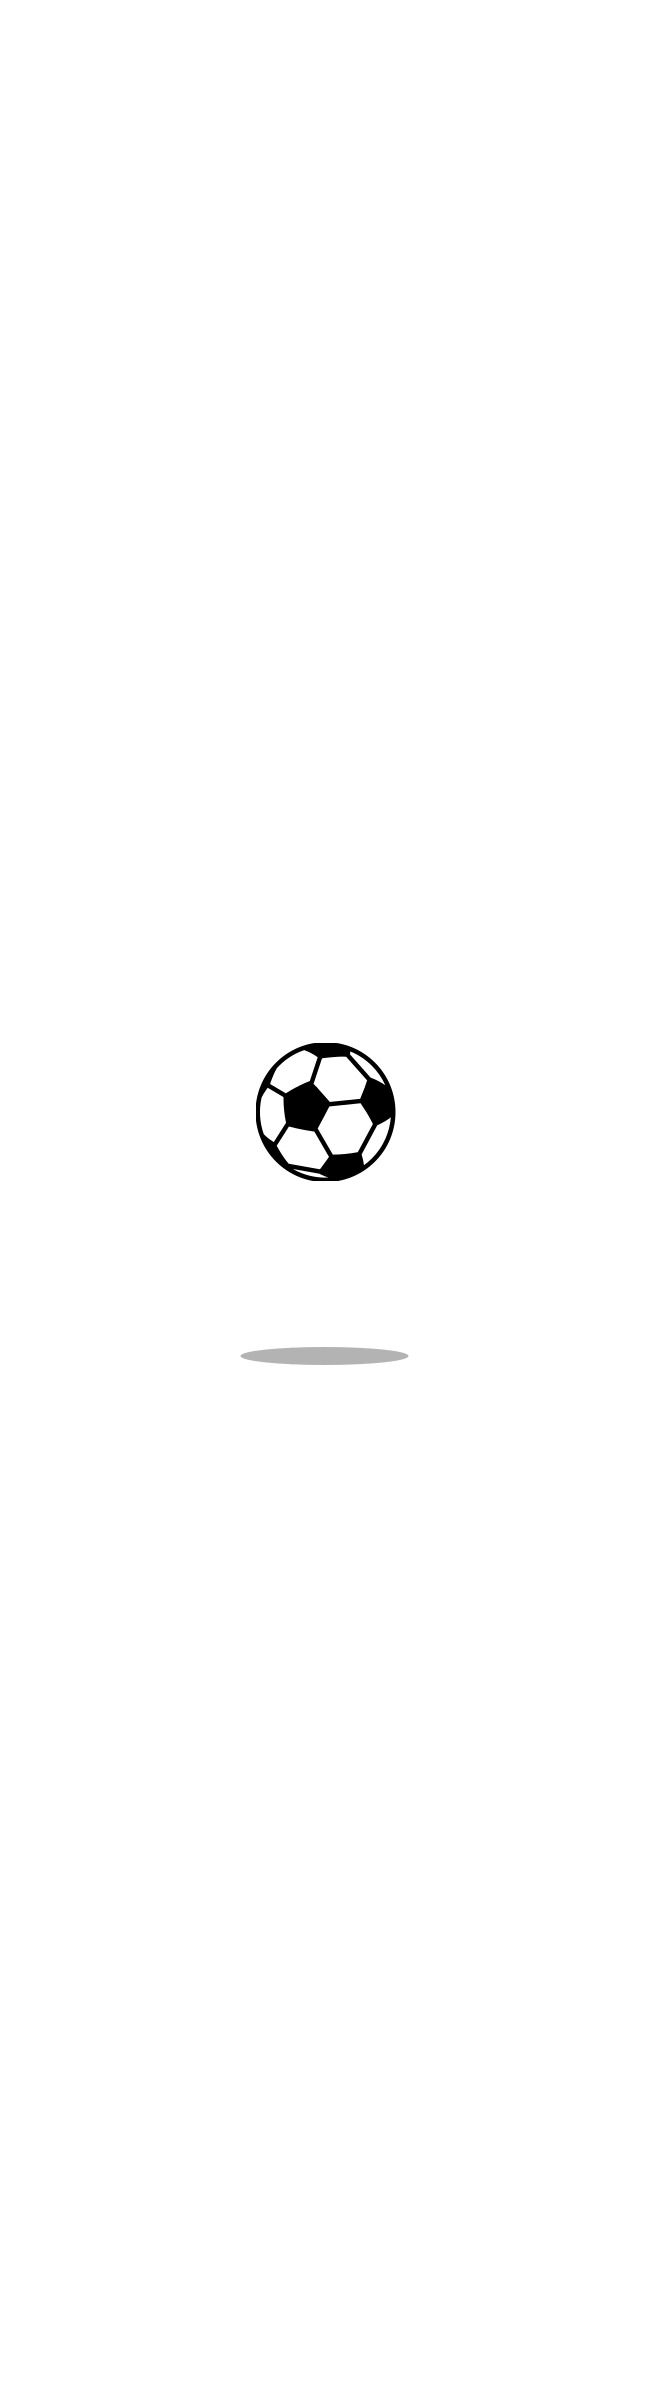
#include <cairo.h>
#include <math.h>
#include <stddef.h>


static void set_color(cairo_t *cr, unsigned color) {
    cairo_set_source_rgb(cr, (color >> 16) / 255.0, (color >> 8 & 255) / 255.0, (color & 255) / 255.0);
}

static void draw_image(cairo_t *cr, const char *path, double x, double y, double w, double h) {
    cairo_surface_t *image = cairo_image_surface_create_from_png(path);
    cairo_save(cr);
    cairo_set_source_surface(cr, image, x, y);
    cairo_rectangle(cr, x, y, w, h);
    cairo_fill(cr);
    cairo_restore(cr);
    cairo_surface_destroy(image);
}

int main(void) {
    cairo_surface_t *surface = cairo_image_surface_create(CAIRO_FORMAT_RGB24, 649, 2405);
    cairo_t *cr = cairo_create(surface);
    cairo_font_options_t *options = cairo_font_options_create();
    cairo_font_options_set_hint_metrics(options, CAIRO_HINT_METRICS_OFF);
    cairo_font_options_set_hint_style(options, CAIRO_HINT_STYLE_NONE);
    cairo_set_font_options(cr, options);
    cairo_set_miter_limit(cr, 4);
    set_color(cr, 0xFFFFFF);
    cairo_paint(cr);
    draw_image(cr, "assets/img1.png", 256, 1043, 140, 138);
    set_color(cr, 0xB3B3B3);
    cairo_new_path(cr);
    cairo_move_to(cr, 324.5, 1347);
    cairo_curve_to(cr, 371, 1347, 408.5, 1351, 408.5, 1356);
    cairo_curve_to(cr, 408.5, 1361, 371, 1365, 324.5, 1365);
    cairo_curve_to(cr, 278, 1365, 240.5, 1361, 240.5, 1356);
    cairo_curve_to(cr, 240.5, 1351, 278, 1347, 324.5, 1347);
    cairo_close_path(cr);
    cairo_fill(cr);
    cairo_surface_write_to_png(surface, "output.png");
    cairo_font_options_destroy(options);
    cairo_destroy(cr);
    cairo_surface_destroy(surface);
    return 0;
}
